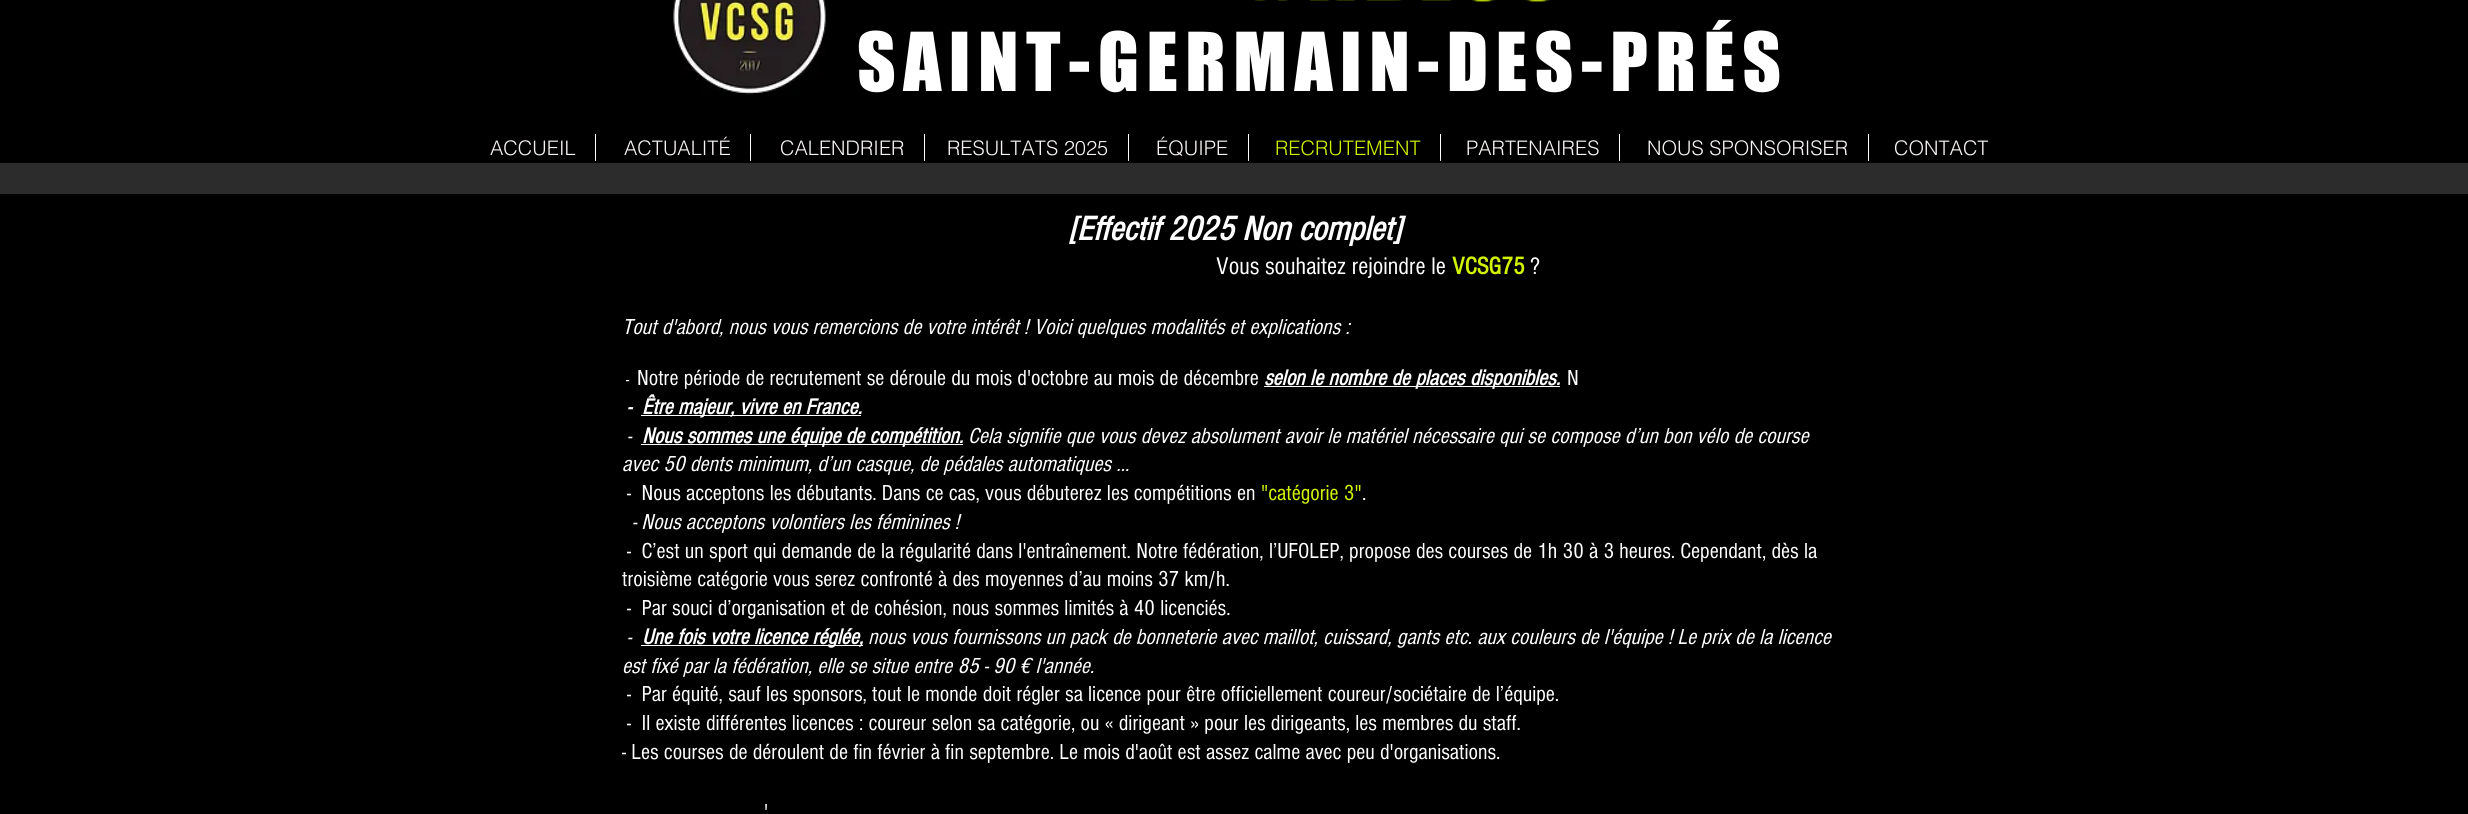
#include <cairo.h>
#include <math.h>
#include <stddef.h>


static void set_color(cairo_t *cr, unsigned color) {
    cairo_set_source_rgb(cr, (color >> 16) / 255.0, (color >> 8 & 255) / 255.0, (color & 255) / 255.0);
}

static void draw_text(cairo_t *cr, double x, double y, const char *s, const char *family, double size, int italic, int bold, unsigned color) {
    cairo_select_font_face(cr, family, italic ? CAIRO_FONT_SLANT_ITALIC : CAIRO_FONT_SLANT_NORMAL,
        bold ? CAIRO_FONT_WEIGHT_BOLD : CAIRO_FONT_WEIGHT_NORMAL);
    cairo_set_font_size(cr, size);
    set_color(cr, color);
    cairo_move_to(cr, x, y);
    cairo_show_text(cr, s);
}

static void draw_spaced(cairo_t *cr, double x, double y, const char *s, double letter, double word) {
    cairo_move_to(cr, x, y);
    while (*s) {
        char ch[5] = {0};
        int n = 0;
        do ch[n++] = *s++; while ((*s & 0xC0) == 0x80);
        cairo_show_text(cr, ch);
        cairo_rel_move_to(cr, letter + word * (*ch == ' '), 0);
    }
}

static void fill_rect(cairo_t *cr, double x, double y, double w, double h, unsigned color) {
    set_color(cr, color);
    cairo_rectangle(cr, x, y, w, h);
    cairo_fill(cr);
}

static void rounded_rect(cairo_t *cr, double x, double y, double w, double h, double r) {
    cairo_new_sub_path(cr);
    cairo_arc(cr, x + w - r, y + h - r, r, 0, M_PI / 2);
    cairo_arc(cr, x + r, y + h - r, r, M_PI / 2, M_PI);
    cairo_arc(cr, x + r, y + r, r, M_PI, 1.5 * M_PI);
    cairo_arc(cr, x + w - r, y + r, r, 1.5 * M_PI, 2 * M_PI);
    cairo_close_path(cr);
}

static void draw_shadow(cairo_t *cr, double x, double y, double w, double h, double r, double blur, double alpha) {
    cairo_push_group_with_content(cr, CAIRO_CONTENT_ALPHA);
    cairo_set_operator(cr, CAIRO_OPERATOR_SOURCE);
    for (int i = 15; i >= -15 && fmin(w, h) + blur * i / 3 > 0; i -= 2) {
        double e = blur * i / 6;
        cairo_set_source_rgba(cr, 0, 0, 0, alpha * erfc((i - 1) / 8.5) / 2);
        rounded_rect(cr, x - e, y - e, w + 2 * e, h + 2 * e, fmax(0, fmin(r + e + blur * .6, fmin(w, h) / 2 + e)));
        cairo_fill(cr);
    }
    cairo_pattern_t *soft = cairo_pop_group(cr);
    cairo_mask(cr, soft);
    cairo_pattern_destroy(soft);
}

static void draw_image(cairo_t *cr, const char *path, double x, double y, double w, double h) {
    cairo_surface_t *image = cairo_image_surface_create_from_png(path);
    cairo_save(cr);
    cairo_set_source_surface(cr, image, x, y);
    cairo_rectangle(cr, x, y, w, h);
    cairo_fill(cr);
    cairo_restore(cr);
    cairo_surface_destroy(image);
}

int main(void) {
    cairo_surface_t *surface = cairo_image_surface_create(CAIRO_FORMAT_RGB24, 2468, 814);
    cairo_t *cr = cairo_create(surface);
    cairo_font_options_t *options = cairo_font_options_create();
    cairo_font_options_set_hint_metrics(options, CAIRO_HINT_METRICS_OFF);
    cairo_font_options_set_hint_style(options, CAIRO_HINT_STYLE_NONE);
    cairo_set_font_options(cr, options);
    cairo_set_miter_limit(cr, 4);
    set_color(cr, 0x000000);
    cairo_paint(cr);
    draw_image(cr, "assets/img1.png", 672, 0, 154, 95);
    draw_image(cr, "assets/img2.png", 1255, 0, 295, 2);
    cairo_select_font_face(cr, "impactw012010", CAIRO_FONT_SLANT_NORMAL, CAIRO_FONT_WEIGHT_NORMAL);
    cairo_set_font_size(cr, 75);
    set_color(cr, 0xFFFFFF);
    draw_spaced(cr, 857, 91, "SAINT-GERMAIN-DES-PRÉS", 7.5, 0);
    draw_text(cr, 490, 155, "ACCUEIL", "helvetica Light", 20, 0, 0, 0xF9F4F4);
    fill_rect(cr, 595, 134, 1, 27, 0xFFFFFF);
    draw_text(cr, 624, 155, "ACTUALITÉ", "helvetica Light", 20, 0, 0, 0xF9F4F4);
    fill_rect(cr, 750, 134, 1, 27, 0xFFFFFF);
    draw_text(cr, 780, 155, "CALENDRIER", "helvetica Light", 20, 0, 0, 0xF9F4F4);
    fill_rect(cr, 924, 134, 1, 27, 0xFFFFFF);
    draw_text(cr, 947, 155, "RESULTATS 2025", "helvetica Light", 20, 0, 0, 0xF9F4F4);
    fill_rect(cr, 1128, 134, 1, 27, 0xFFFFFF);
    draw_text(cr, 1156, 155, "ÉQUIPE", "helvetica Light", 20, 0, 0, 0xF9F4F4);
    fill_rect(cr, 1248, 134, 1, 27, 0xFFFFFF);
    draw_text(cr, 1275, 155, "RECRUTEMENT", "helvetica Light", 20, 0, 0, 0xD2F200);
    fill_rect(cr, 1440, 134, 1, 27, 0xFFFFFF);
    draw_text(cr, 1466, 155, "PARTENAIRES", "helvetica Light", 20, 0, 0, 0xF9F4F4);
    fill_rect(cr, 1619, 134, 1, 27, 0xFFFFFF);
    draw_text(cr, 1647, 155, "NOUS SPONSORISER", "helvetica Light", 20, 0, 0, 0xF9F4F4);
    fill_rect(cr, 1868, 134, 1, 27, 0xFFFFFF);
    draw_text(cr, 1894, 155, "CONTACT", "helvetica Light", 20, 0, 0, 0xF9F4F4);
    set_color(cr, 0x000000);
    draw_shadow(cr, 0, 163, 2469, 31, 0, 3, 0.7);
    fill_rect(cr, 0, 163, 2468, 31, 0x2D2C2C);
    draw_text(cr, 1068, 240, "[Effectif 2025 Non complet]", "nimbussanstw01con", 35, 1, 1, 0xFFFFFF);
    draw_text(cr, 1216, 274, "Vous souhaitez rejoindre le", "nimbussanstw01con", 25, 0, 0, 0xFFFFFF);
    draw_text(cr, 1452, 274, "VCSG75", "nimbussanstw01con", 25, 0, 1, 0xD2F200);
    draw_text(cr, 1530, 274, "?", "nimbussanstw01con", 25, 0, 0, 0xFFFFFF);
    draw_text(cr, 622, 334, "Tout d'abord, nous vous remercions de votre intérêt ! Voici quelques modalités et explications :", "nimbussanstw01con", 22.5, 1, 0, 0xFFFFFF);
    draw_text(cr, 626, 385, "-", "nimbussanstw01con", 18, 0, 0, 0xFFFFFF);
    draw_text(cr, 637, 385, "Notre période de recrutement se déroule du mois d'octobre au mois de décembre", "nimbussanstw01con", 22.5, 0, 0, 0xFFFFFF);
    fill_rect(cr, 1264, 386, 296, 1, 0xFFFFFF);
    draw_text(cr, 1264, 385, "selon le nombre de places disponibles.", "nimbussanstw01con", 22.5, 1, 1, 0xFFFFFF);
    draw_text(cr, 1567, 385, "N", "nimbussanstw01con", 22.5, 0, 0, 0xFFFFFF);
    draw_text(cr, 627, 414, "-", "nimbussanstw01con", 22.5, 1, 1, 0xFFFFFF);
    fill_rect(cr, 641, 415, 220, 1, 0xFFFFFF);
    draw_text(cr, 642, 414, "Être majeur, vivre en France.", "nimbussanstw01con", 22.5, 1, 1, 0xFFFFFF);
    draw_text(cr, 627, 443, "-", "nimbussanstw01con", 22.5, 1, 0, 0xFFFFFF);
    fill_rect(cr, 641, 444, 322, 1, 0xFFFFFF);
    draw_text(cr, 642, 443, "Nous sommes une équipe de compétition.", "nimbussanstw01con", 22.5, 1, 1, 0xFFFFFF);
    draw_text(cr, 968, 443, "Cela signifie que vous devez absolument avoir le matériel nécessaire qui se compose d’un bon vélo de course", "nimbussanstw01con", 22.5, 1, 0, 0xFFFFFF);
    draw_text(cr, 622, 471, "avec 50 dents minimum, d’un casque, de pédales automatiques …", "nimbussanstw01con", 22.5, 1, 0, 0xFFFFFF);
    draw_text(cr, 627, 500, "-  Nous acceptons les débutants. Dans ce cas, vous débuterez les compétitions en", "nimbussanstw01con", 22.5, 0, 0, 0xFFFFFF);
    draw_text(cr, 1261, 500, "\"catégorie 3\"", "nimbussanstw01con", 22.5, 0, 0, 0xD2F200);
    draw_text(cr, 1362, 500, ".", "nimbussanstw01con", 22.5, 0, 0, 0xFFFFFF);
    draw_text(cr, 632, 529, "- Nous acceptons volontiers les féminines !", "nimbussanstw01con", 22.5, 1, 0, 0xFFFFFF);
    draw_text(cr, 627, 558, "-  C’est un sport qui demande de la régularité dans l'entraînement. Notre fédération, l’UFOLEP, propose des courses de 1h 30 à 3 heures. Cependant, dès la", "nimbussanstw01con", 22.5, 0, 0, 0xFFFFFF);
    draw_text(cr, 622, 586, "troisième catégorie vous serez confronté à des moyennes d’au moins 37 km/h.", "nimbussanstw01con", 22.5, 0, 0, 0xFFFFFF);
    draw_text(cr, 627, 615, "-  Par souci d’organisation et de cohésion, nous sommes limités à 40 licenciés.", "nimbussanstw01con", 22.5, 0, 0, 0xFFFFFF);
    draw_text(cr, 627, 644, "-", "nimbussanstw01con", 22.5, 1, 0, 0xFFFFFF);
    fill_rect(cr, 641, 645, 222, 1, 0xFFFFFF);
    draw_text(cr, 642, 644, "Une fois votre licence réglée,", "nimbussanstw01con", 22.5, 1, 1, 0xFFFFFF);
    draw_text(cr, 868, 644, "nous vous fournissons un pack de bonneterie avec maillot, cuissard, gants etc. aux couleurs de l'équipe ! Le prix de la licence", "nimbussanstw01con", 22.5, 1, 0, 0xFFFFFF);
    draw_text(cr, 622, 673, "est fixé par la fédération, elle se situe entre 85 - 90 € l'année.", "nimbussanstw01con", 22.5, 1, 0, 0xFFFFFF);
    draw_text(cr, 627, 701, "-  Par équité, sauf les sponsors, tout le monde doit régler sa licence pour être officiellement coureur/sociétaire de l’équipe.", "nimbussanstw01con", 22.5, 0, 0, 0xFFFFFF);
    draw_text(cr, 627, 730, "-  Il existe différentes licences : coureur selon sa catégorie, ou « dirigeant » pour les dirigeants, les membres du staff.", "nimbussanstw01con", 22.5, 0, 0, 0xFFFFFF);
    draw_text(cr, 622, 759, "- Les courses de déroulent de fin février à fin septembre. Le mois d'août est assez calme avec peu d'organisations.", "nimbussanstw01con", 22.5, 0, 0, 0xFFFFFF);
    draw_text(cr, 764, 819, "'", "nimbussanstw01con", 22.5, 0, 0, 0xFFFFFF);
    cairo_surface_write_to_png(surface, "output.png");
    cairo_font_options_destroy(options);
    cairo_destroy(cr);
    cairo_surface_destroy(surface);
    return 0;
}
